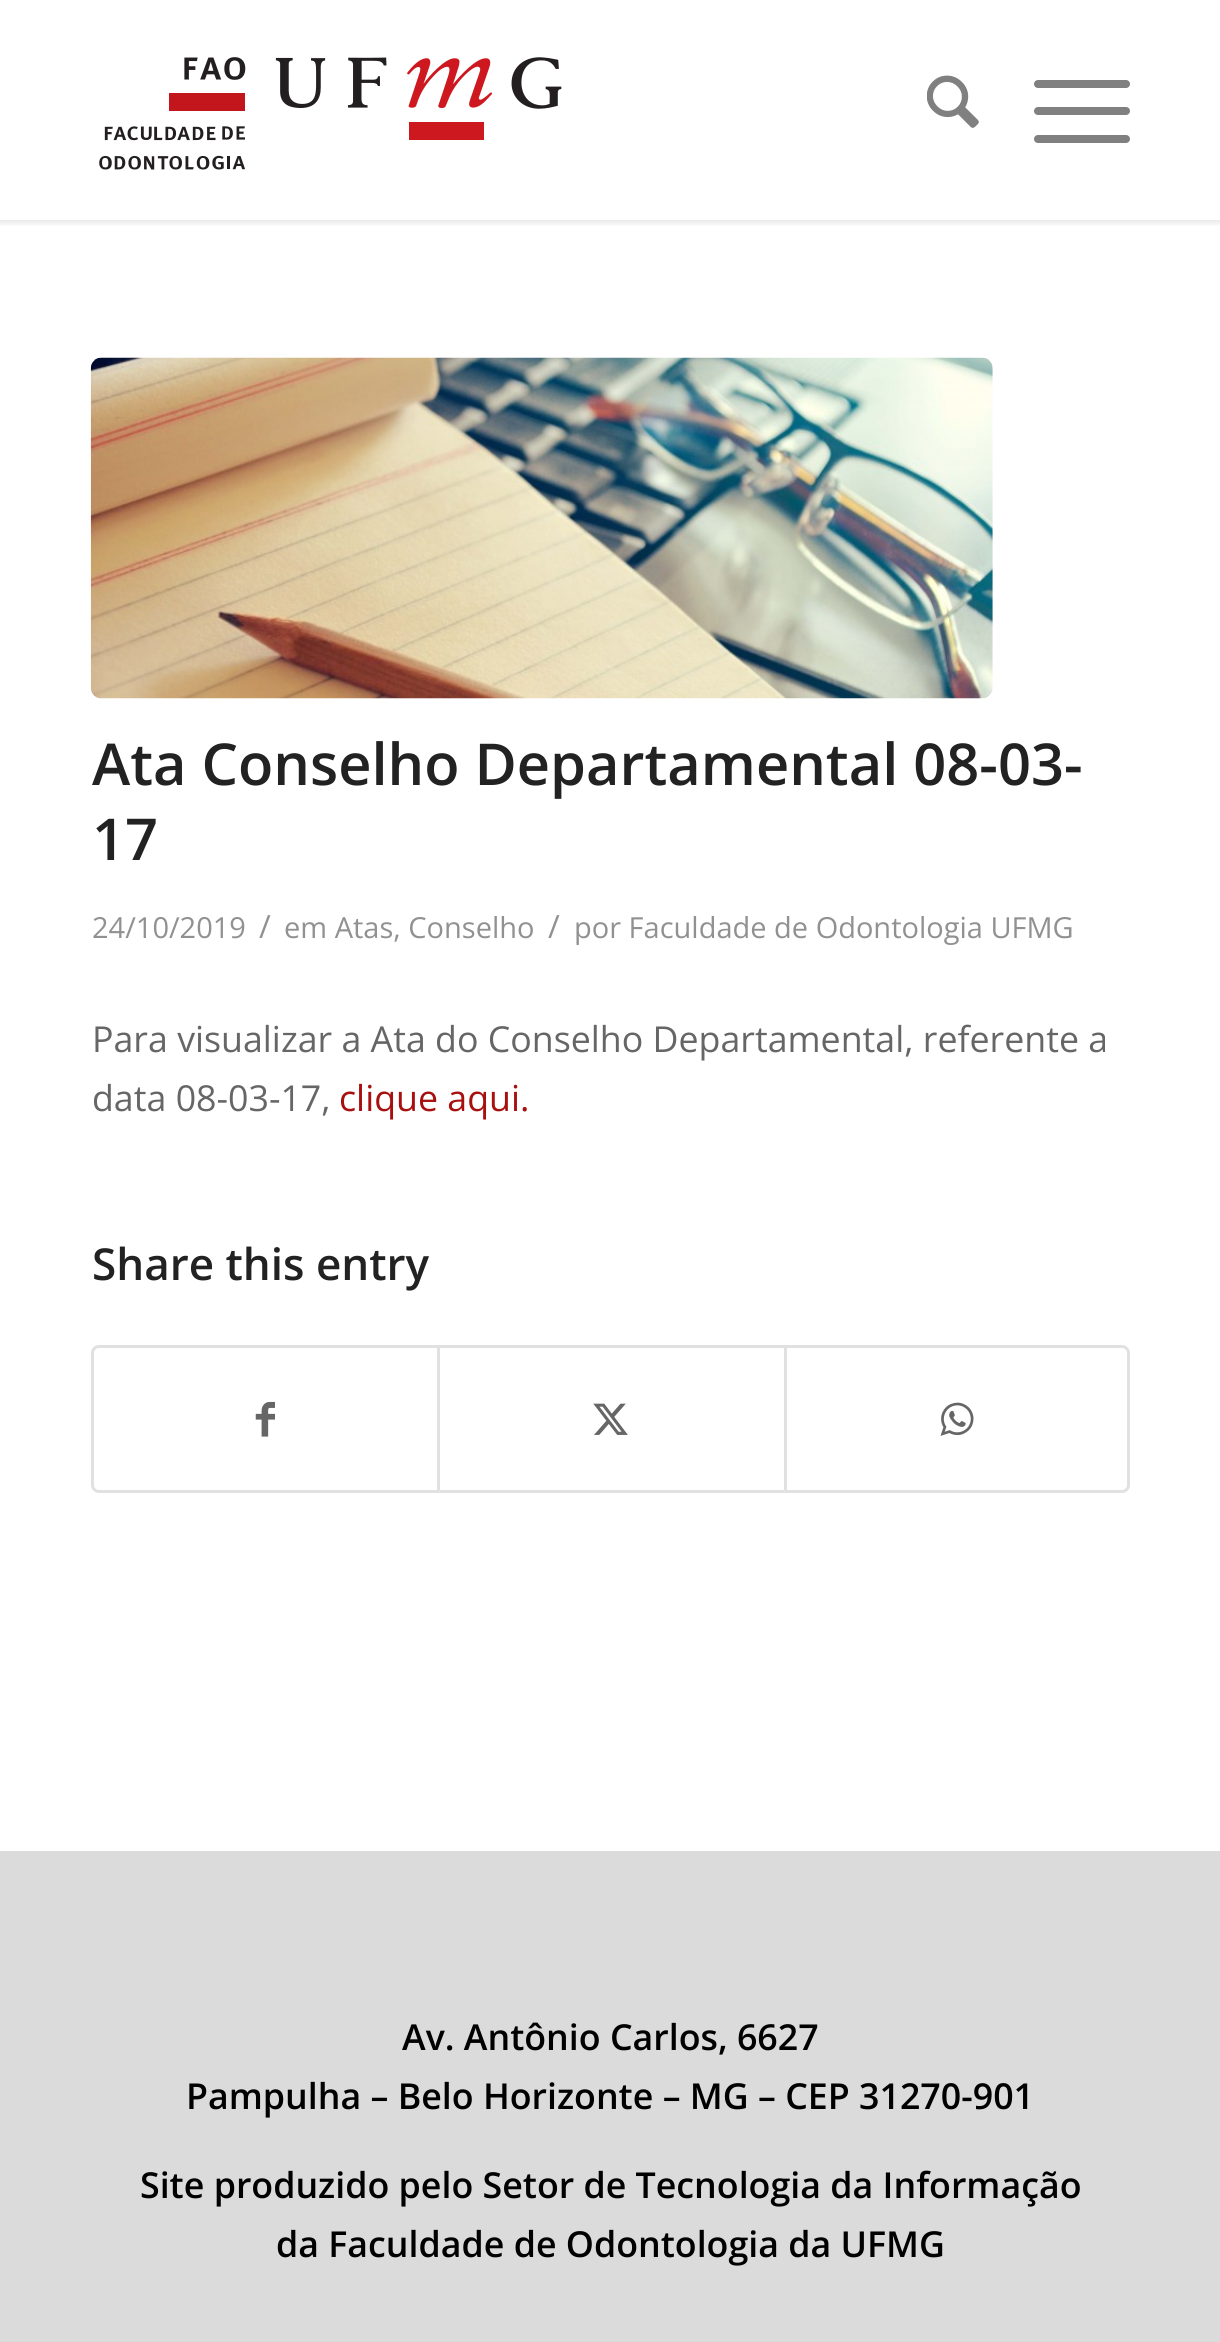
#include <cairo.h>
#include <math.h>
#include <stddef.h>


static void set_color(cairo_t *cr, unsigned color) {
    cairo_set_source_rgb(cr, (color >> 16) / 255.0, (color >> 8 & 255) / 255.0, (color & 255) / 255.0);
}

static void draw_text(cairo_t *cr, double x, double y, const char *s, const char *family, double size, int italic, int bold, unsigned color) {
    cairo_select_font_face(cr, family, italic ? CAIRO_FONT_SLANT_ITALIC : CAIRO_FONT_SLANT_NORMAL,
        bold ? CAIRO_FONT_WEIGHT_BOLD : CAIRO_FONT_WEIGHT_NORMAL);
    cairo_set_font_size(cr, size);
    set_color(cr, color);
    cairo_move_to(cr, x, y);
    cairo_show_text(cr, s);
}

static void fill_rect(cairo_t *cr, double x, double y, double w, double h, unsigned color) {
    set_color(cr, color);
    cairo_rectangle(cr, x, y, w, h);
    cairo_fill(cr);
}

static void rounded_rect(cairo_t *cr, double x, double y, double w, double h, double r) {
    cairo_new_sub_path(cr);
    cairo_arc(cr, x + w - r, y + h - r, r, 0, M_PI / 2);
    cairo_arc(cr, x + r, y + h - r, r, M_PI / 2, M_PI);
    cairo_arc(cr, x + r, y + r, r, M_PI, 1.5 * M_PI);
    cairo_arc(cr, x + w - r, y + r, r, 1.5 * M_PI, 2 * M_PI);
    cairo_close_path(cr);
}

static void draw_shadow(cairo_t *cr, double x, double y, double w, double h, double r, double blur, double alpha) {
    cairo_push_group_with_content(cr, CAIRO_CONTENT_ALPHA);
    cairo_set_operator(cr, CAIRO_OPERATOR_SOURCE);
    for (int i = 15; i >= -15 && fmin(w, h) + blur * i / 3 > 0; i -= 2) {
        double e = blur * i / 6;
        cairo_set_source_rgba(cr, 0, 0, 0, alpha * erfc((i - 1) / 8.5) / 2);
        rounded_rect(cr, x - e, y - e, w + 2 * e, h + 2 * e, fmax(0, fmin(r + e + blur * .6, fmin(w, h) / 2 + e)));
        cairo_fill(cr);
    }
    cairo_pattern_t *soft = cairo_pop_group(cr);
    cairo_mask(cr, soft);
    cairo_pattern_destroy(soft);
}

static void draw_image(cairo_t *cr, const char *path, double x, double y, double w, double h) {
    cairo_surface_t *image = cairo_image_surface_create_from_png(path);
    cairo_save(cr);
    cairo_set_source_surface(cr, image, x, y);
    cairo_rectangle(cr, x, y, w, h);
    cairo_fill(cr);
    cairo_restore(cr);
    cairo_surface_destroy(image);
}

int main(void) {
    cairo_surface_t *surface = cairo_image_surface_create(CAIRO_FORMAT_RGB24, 1220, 2342);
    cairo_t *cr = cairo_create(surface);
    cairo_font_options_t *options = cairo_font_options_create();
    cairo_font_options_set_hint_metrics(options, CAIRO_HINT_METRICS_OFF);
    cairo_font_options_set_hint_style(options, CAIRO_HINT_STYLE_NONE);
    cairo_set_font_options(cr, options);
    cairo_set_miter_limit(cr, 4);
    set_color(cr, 0xFFFFFF);
    cairo_paint(cr);
    cairo_save(cr);
    cairo_rectangle(cr, 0, 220, 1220, 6);
    cairo_clip(cr);
    set_color(cr, 0x000000);
    draw_shadow(cr, -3, -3, 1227, 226, 0, 3, 0.1);
    cairo_restore(cr);
    draw_image(cr, "assets/img1.png", 99, 57, 463, 113);
    draw_image(cr, "assets/img2.png", 927, 75, 52, 53);
    set_color(cr, 0x808080);
    rounded_rect(cr, 1034, 107, 96, 8, 4);
    cairo_fill(cr);
    rounded_rect(cr, 1034, 80, 96, 8, 4);
    cairo_fill(cr);
    rounded_rect(cr, 1034, 135, 96, 8, 4);
    cairo_fill(cr);
    draw_image(cr, "assets/img3.png", 90, 357, 903, 342);
    draw_text(cr, 92, 785, "Ata Conselho Departamental 08-03-", "Open Sans SemiBold", 57.75, 0, 0, 0x222222);
    draw_text(cr, 92, 860, "17", "Open Sans SemiBold", 57.75, 0, 0, 0x222222);
    draw_text(cr, 92, 938, "24/10/2019", "Open Sans", 29, 0, 0, 0x919191);
    draw_text(cr, 259, 938, "/", "Open Sans", 32, 0, 0, 0x919191);
    draw_text(cr, 284, 938, "em Atas, Conselho", "Open Sans", 29, 0, 0, 0x919191);
    draw_text(cr, 548, 938, "/", "Open Sans", 32, 0, 0, 0x919191);
    draw_text(cr, 574, 938, "por Faculdade de Odontologia UFMG", "Open Sans", 29, 0, 0, 0x919191);
    draw_text(cr, 92, 1052, "Para visualizar a Ata do Conselho Departamental, referente a", "Open Sans", 35.75, 0, 0, 0x666666);
    draw_text(cr, 92, 1111, "data 08-03-17,", "Open Sans", 35.75, 0, 0, 0x666666);
    draw_text(cr, 339, 1111, "clique aqui.", "Open Sans", 35.75, 0, 0, 0xA81010);
    draw_text(cr, 92, 1280, "Share this entry", "Open Sans SemiBold", 44, 0, 0, 0x222222);
    rounded_rect(cr, 92.5, 1346.5, 1036, 145, 6.5);
    set_color(cr, 0xE1E1E1);
    cairo_set_line_width(cr, 3);
    cairo_stroke(cr);
    draw_image(cr, "assets/img4.png", 255, 1401, 20, 36);
    fill_rect(cr, 437, 1348, 3, 143, 0xE1E1E1);
    draw_image(cr, "assets/img5.png", 593, 1403, 35, 32);
    fill_rect(cr, 784, 1348, 3, 143, 0xE1E1E1);
    draw_image(cr, "assets/img6.png", 940, 1402, 34, 34);
    fill_rect(cr, 0, 1851, 1220, 491, 0xDBDBDB);
    draw_text(cr, 402, 2050, "Av. Antônio Carlos, 6627", "Open Sans SemiBold", 35.75, 0, 0, 0x000000);
    draw_text(cr, 186, 2109, "Pampulha – Belo Horizonte – MG – CEP 31270-901", "Open Sans SemiBold", 35.75, 0, 0, 0x000000);
    draw_text(cr, 140, 2198, "Site produzido pelo Setor de Tecnologia da Informação", "Open Sans SemiBold", 35.75, 0, 0, 0x000000);
    draw_text(cr, 276, 2257, "da Faculdade de Odontologia da UFMG", "Open Sans SemiBold", 35.75, 0, 0, 0x000000);
    cairo_surface_write_to_png(surface, "output.png");
    cairo_font_options_destroy(options);
    cairo_destroy(cr);
    cairo_surface_destroy(surface);
    return 0;
}
